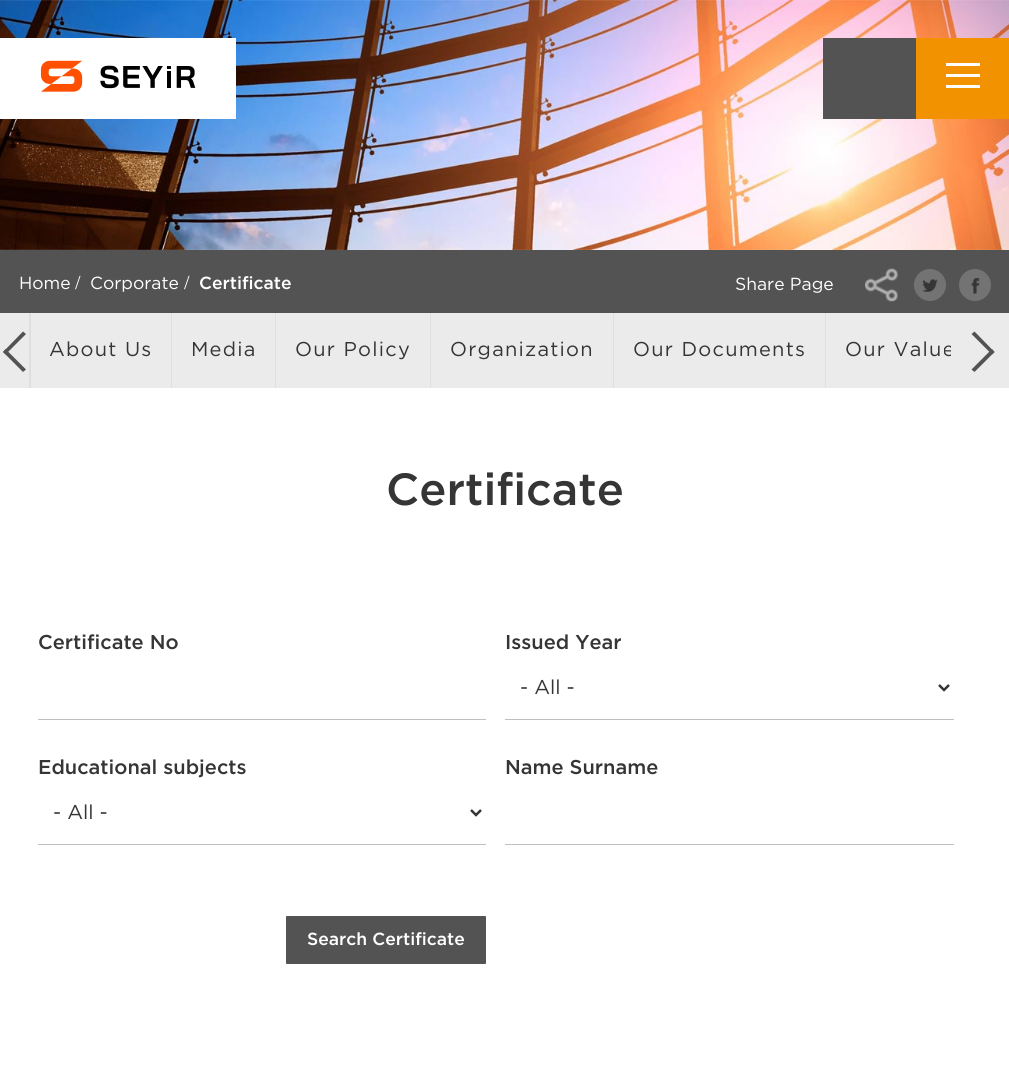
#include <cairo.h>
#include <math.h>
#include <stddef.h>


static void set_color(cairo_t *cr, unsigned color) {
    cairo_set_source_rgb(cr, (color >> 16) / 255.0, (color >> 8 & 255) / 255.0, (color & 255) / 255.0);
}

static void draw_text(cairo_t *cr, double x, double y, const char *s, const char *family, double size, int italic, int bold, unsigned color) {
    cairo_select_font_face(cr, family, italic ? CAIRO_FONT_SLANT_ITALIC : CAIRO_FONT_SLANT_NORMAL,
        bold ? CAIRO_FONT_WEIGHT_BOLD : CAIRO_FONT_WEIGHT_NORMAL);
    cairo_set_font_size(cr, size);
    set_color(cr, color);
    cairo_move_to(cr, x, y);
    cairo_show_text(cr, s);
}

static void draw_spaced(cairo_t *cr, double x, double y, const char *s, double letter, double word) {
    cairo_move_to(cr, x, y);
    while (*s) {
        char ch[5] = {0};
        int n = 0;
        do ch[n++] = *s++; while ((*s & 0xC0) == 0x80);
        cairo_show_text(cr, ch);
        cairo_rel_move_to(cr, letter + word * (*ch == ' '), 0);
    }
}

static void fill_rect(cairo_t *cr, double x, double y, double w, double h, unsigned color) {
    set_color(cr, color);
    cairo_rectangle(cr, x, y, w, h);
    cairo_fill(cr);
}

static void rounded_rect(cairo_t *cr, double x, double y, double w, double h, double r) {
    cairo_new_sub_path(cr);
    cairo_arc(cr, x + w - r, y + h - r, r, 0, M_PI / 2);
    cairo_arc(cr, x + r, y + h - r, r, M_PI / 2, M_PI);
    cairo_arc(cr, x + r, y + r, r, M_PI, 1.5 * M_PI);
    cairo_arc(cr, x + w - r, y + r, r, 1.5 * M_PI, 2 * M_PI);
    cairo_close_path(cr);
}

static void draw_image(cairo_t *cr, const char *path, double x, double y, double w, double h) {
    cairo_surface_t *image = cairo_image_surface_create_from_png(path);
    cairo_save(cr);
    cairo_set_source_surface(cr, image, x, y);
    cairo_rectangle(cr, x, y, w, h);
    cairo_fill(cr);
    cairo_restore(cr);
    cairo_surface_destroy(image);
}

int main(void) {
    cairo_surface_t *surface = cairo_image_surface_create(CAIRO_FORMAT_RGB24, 1009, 1073);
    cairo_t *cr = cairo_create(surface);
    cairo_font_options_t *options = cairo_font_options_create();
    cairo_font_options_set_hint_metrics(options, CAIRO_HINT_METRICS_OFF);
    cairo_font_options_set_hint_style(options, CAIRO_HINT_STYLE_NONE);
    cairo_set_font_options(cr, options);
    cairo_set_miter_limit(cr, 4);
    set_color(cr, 0xFFFFFF);
    cairo_paint(cr);
    draw_image(cr, "assets/img2.png", 0, 0, 1009, 250);
    fill_rect(cr, 0, 38, 236, 81, 0xFFFFFF);
    draw_image(cr, "assets/img1.png", 40, 60, 156, 32);
    fill_rect(cr, 823, 38, 93, 81, 0x535353);
    fill_rect(cr, 916, 38, 93, 81, 0xF39200);
    fill_rect(cr, 946, 63, 34, 3, 0xFFFFFF);
    fill_rect(cr, 946, 74, 34, 3, 0xFFFFFF);
    fill_rect(cr, 946, 85, 34, 3, 0xFFFFFF);
    fill_rect(cr, 0, 250, 1009, 63, 0x535353);
    draw_text(cr, 19, 289, "Home", "Gotham", 17.5, 0, 0, 0xFFFFFF);
    draw_text(cr, 75, 289, "/", "Liberation Serif", 20, 0, 0, 0xFFFFFF);
    draw_text(cr, 90, 289, "Corporate", "Gotham", 17.5, 0, 0, 0xFFFFFF);
    draw_text(cr, 184, 289, "/", "Liberation Serif", 20, 0, 0, 0xFFFFFF);
    draw_text(cr, 199, 289, "Certificate", "Gotham Medium", 17.5, 0, 0, 0xFFFFFF);
    draw_text(cr, 735, 290, "Share Page", "Gotham", 17.5, 0, 0, 0xFFFFFF);
    draw_image(cr, "assets/img3.png", 865, 268, 33, 34);
    set_color(cr, 0x737373);
    cairo_arc(cr, 930, 285, 16, 0, 2 * M_PI);
    cairo_fill(cr);
    draw_image(cr, "assets/img4.png", 922, 279, 16, 13);
    cairo_arc(cr, 975, 285, 16, 0, 2 * M_PI);
    cairo_fill(cr);
    draw_image(cr, "assets/img5.png", 971, 278, 9, 16);
    fill_rect(cr, 0, 313, 1009, 75, 0xEBEBEB);
    set_color(cr, 0x535353);
    cairo_new_path(cr);
    cairo_move_to(cr, 26, 369.5);
    cairo_line_to(cr, 23, 372);
    cairo_line_to(cr, 3, 352);
    cairo_line_to(cr, 5.5, 349);
    cairo_close_path(cr);
    cairo_fill(cr);
    cairo_new_path(cr);
    cairo_move_to(cr, 26, 334);
    cairo_line_to(cr, 5.5, 354.5);
    cairo_line_to(cr, 3, 352);
    cairo_line_to(cr, 23, 331.5);
    cairo_close_path(cr);
    cairo_fill(cr);
    fill_rect(cr, 29, 313, 2, 75, 0xDFDFDF);
    cairo_set_font_size(cr, 20);
    set_color(cr, 0x353535);
    draw_spaced(cr, 49, 356, "About Us", 1.25, 0);
    fill_rect(cr, 171, 313, 1, 75, 0xDFDFDF);
    set_color(cr, 0x353535);
    draw_spaced(cr, 191, 356, "Media", 1.25, 0);
    fill_rect(cr, 275, 313, 1, 75, 0xDFDFDF);
    set_color(cr, 0x353535);
    draw_spaced(cr, 295, 356, "Our Policy", 1.25, 0);
    fill_rect(cr, 430, 313, 1, 75, 0xDFDFDF);
    set_color(cr, 0x353535);
    draw_spaced(cr, 450, 356, "Organization", 1.25, 0);
    fill_rect(cr, 613, 313, 1, 75, 0xDFDFDF);
    set_color(cr, 0x353535);
    draw_spaced(cr, 633, 356, "Our Documents", 1.25, 0);
    fill_rect(cr, 825, 313, 1, 75, 0xDFDFDF);
    cairo_save(cr);
    cairo_rectangle(cr, 29, 313, 922, 75);
    cairo_clip(cr);
    set_color(cr, 0x353535);
    draw_spaced(cr, 845, 356, "Our Value", 1.25, 0);
    cairo_restore(cr);
    set_color(cr, 0x535353);
    cairo_new_path(cr);
    cairo_move_to(cr, 971.5, 334);
    cairo_line_to(cr, 974.5, 331.5);
    cairo_line_to(cr, 994.5, 352);
    cairo_line_to(cr, 992, 354.5);
    cairo_close_path(cr);
    cairo_fill(cr);
    cairo_new_path(cr);
    cairo_move_to(cr, 971.5, 369.5);
    cairo_line_to(cr, 992, 349);
    cairo_line_to(cr, 994.5, 352);
    cairo_line_to(cr, 974.5, 372);
    cairo_close_path(cr);
    cairo_fill(cr);
    draw_text(cr, 386, 505, "Certificate", "Gotham Medium", 45, 0, 0, 0x353535);
    draw_text(cr, 38, 649, "Certificate No", "Gotham Medium", 20, 0, 0, 0x353535);
    fill_rect(cr, 38, 719, 448, 1, 0xBFBFBF);
    draw_text(cr, 505, 649, "Issued Year", "Gotham Medium", 20, 0, 0, 0x353535);
    fill_rect(cr, 505, 719, 449, 1, 0xBFBFBF);
    cairo_new_path(cr);
    cairo_move_to(cr, 939, 685);
    cairo_line_to(cr, 944, 690);
    cairo_line_to(cr, 949, 685);
    set_color(cr, 0x353535);
    cairo_set_line_width(cr, 2.5);
    cairo_stroke(cr);
    draw_text(cr, 520, 694, "- All -", "Gotham", 20, 0, 0, 0x353535);
    draw_text(cr, 38, 774, "Educational subjects", "Gotham Medium", 20, 0, 0, 0x353535);
    fill_rect(cr, 38, 844, 448, 1, 0xBFBFBF);
    cairo_new_path(cr);
    cairo_move_to(cr, 471, 810);
    cairo_line_to(cr, 476, 815);
    cairo_line_to(cr, 481, 810);
    set_color(cr, 0x353535);
    cairo_stroke(cr);
    draw_text(cr, 53, 819, "- All -", "Gotham", 20, 0, 0, 0x353535);
    draw_text(cr, 505, 774, "Name Surname", "Gotham Medium", 20, 0, 0, 0x353535);
    fill_rect(cr, 505, 844, 449, 1, 0xBFBFBF);
    set_color(cr, 0x535353);
    rounded_rect(cr, 286, 916, 200, 48, 1);
    cairo_fill(cr);
    draw_text(cr, 307, 945, "Search Certificate", "Gotham Medium", 17.5, 0, 0, 0xFFFFFF);
    cairo_surface_write_to_png(surface, "output.png");
    cairo_font_options_destroy(options);
    cairo_destroy(cr);
    cairo_surface_destroy(surface);
    return 0;
}
